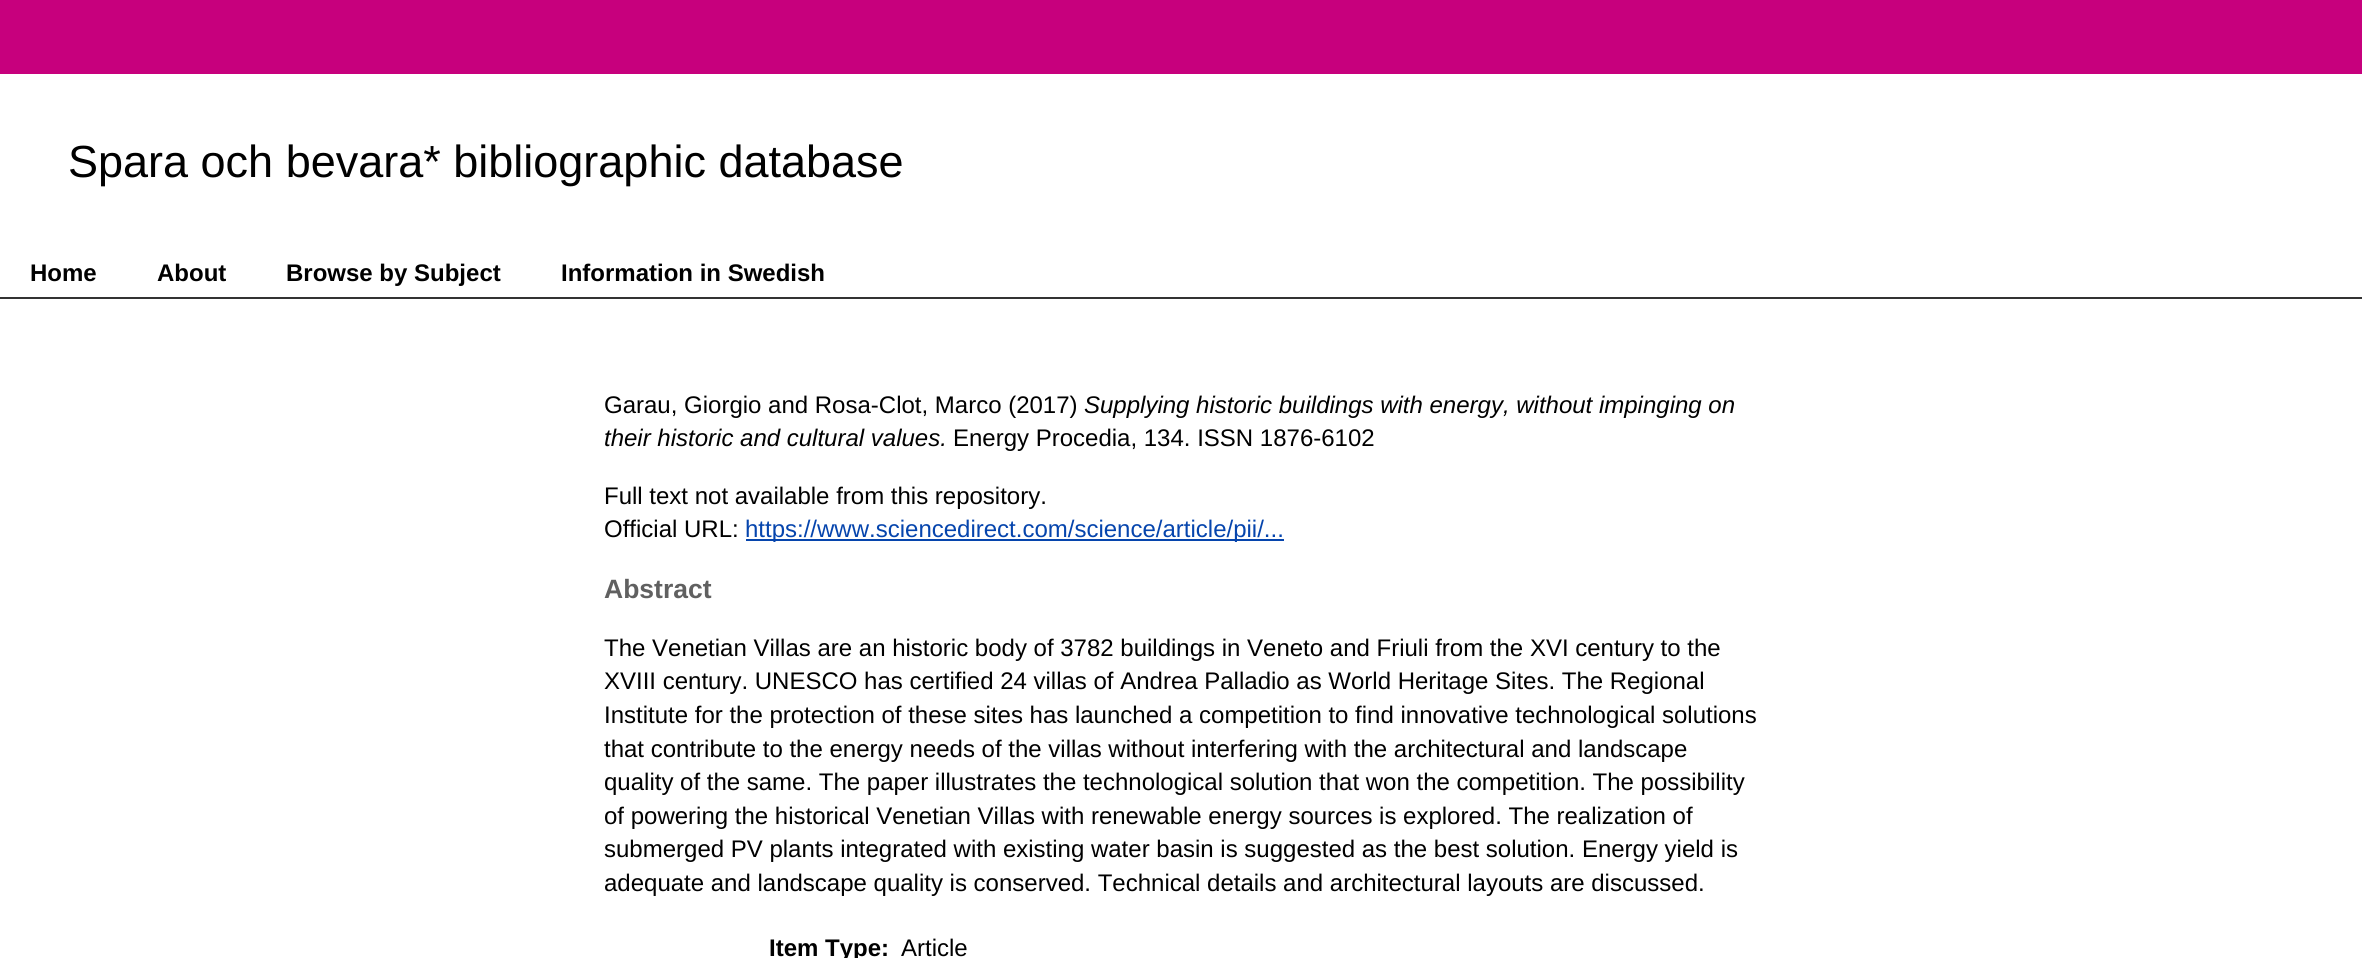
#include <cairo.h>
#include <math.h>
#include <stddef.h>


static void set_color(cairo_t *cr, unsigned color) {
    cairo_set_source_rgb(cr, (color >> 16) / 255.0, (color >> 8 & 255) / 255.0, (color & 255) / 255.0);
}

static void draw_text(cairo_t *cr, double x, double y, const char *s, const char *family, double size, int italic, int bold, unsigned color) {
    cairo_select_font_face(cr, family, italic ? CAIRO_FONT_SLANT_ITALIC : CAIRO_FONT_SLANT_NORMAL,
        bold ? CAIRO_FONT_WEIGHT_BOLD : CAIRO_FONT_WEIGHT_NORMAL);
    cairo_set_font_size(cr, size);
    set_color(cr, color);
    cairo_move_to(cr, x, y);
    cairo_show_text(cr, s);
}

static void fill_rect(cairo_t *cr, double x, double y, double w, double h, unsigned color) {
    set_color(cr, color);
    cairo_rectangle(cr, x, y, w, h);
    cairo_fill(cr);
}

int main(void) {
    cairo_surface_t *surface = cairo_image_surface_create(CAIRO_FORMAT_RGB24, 2362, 958);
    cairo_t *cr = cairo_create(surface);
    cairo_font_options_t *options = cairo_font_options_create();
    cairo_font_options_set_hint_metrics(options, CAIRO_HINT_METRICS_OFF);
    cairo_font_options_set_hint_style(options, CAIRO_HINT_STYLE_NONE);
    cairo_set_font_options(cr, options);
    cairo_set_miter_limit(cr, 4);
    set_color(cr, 0xFFFFFF);
    cairo_paint(cr);
    fill_rect(cr, 0, 0, 2362, 74, 0xC7007D);
    draw_text(cr, 68, 177, "Spara och bevara* bibliographic database", "Liberation Sans", 45, 0, 0, 0x000000);
    draw_text(cr, 30, 281, "Home", "Liberation Sans", 24, 0, 1, 0x000000);
    draw_text(cr, 157, 281, "About", "Liberation Sans", 24, 0, 1, 0x000000);
    draw_text(cr, 286, 281, "Browse by Subject", "Liberation Sans", 24, 0, 1, 0x000000);
    draw_text(cr, 561, 281, "Information in Swedish", "Liberation Sans", 24, 0, 1, 0x000000);
    fill_rect(cr, 0, 297, 2362, 2, 0x333333);
    draw_text(cr, 604, 413, "Garau, Giorgio and Rosa-Clot, Marco (2017)", "Liberation Sans", 24, 0, 0, 0x000000);
    draw_text(cr, 1084, 413, "Supplying historic buildings with energy, without impinging on", "Liberation Sans", 24, 1, 0, 0x000000);
    draw_text(cr, 604, 446, "their historic and cultural values.", "Liberation Sans", 24, 1, 0, 0x000000);
    draw_text(cr, 953, 446, "Energy Procedia, 134. ISSN 1876-6102", "Liberation Sans", 24, 0, 0, 0x000000);
    draw_text(cr, 604, 504, "Full text not available from this repository.", "Liberation Sans", 24, 0, 0, 0x000000);
    draw_text(cr, 604, 537, "Official URL:", "Liberation Sans", 24, 0, 0, 0x000000);
    fill_rect(cr, 746, 539, 538, 2, 0x0645AD);
    draw_text(cr, 745, 537, "https://www.sciencedirect.com/science/article/pii/...", "Liberation Sans", 24, 0, 0, 0x0645AD);
    draw_text(cr, 604, 598, "Abstract", "Liberation Sans", 26.5, 0, 1, 0x606060);
    draw_text(cr, 604, 656, "The Venetian Villas are an historic body of 3782 buildings in Veneto and Friuli from the XVI century to the", "Liberation Sans", 24, 0, 0, 0x000000);
    draw_text(cr, 604, 689, "XVIII century. UNESCO has certified 24 villas of Andrea Palladio as World Heritage Sites. The Regional", "Liberation Sans", 24, 0, 0, 0x000000);
    draw_text(cr, 604, 723, "Institute for the protection of these sites has launched a competition to find innovative technological solutions", "Liberation Sans", 24, 0, 0, 0x000000);
    draw_text(cr, 604, 757, "that contribute to the energy needs of the villas without interfering with the architectural and landscape", "Liberation Sans", 24, 0, 0, 0x000000);
    draw_text(cr, 604, 790, "quality of the same. The paper illustrates the technological solution that won the competition. The possibility", "Liberation Sans", 24, 0, 0, 0x000000);
    draw_text(cr, 604, 824, "of powering the historical Venetian Villas with renewable energy sources is explored. The realization of", "Liberation Sans", 24, 0, 0, 0x000000);
    draw_text(cr, 604, 857, "submerged PV plants integrated with existing water basin is suggested as the best solution. Energy yield is", "Liberation Sans", 24, 0, 0, 0x000000);
    draw_text(cr, 604, 891, "adequate and landscape quality is conserved. Technical details and architectural layouts are discussed.", "Liberation Sans", 24, 0, 0, 0x000000);
    draw_text(cr, 769, 956, "Item Type:", "Liberation Sans", 24, 0, 1, 0x000000);
    draw_text(cr, 901, 956, "Article", "Liberation Sans", 24, 0, 0, 0x000000);
    cairo_surface_write_to_png(surface, "output.png");
    cairo_font_options_destroy(options);
    cairo_destroy(cr);
    cairo_surface_destroy(surface);
    return 0;
}
